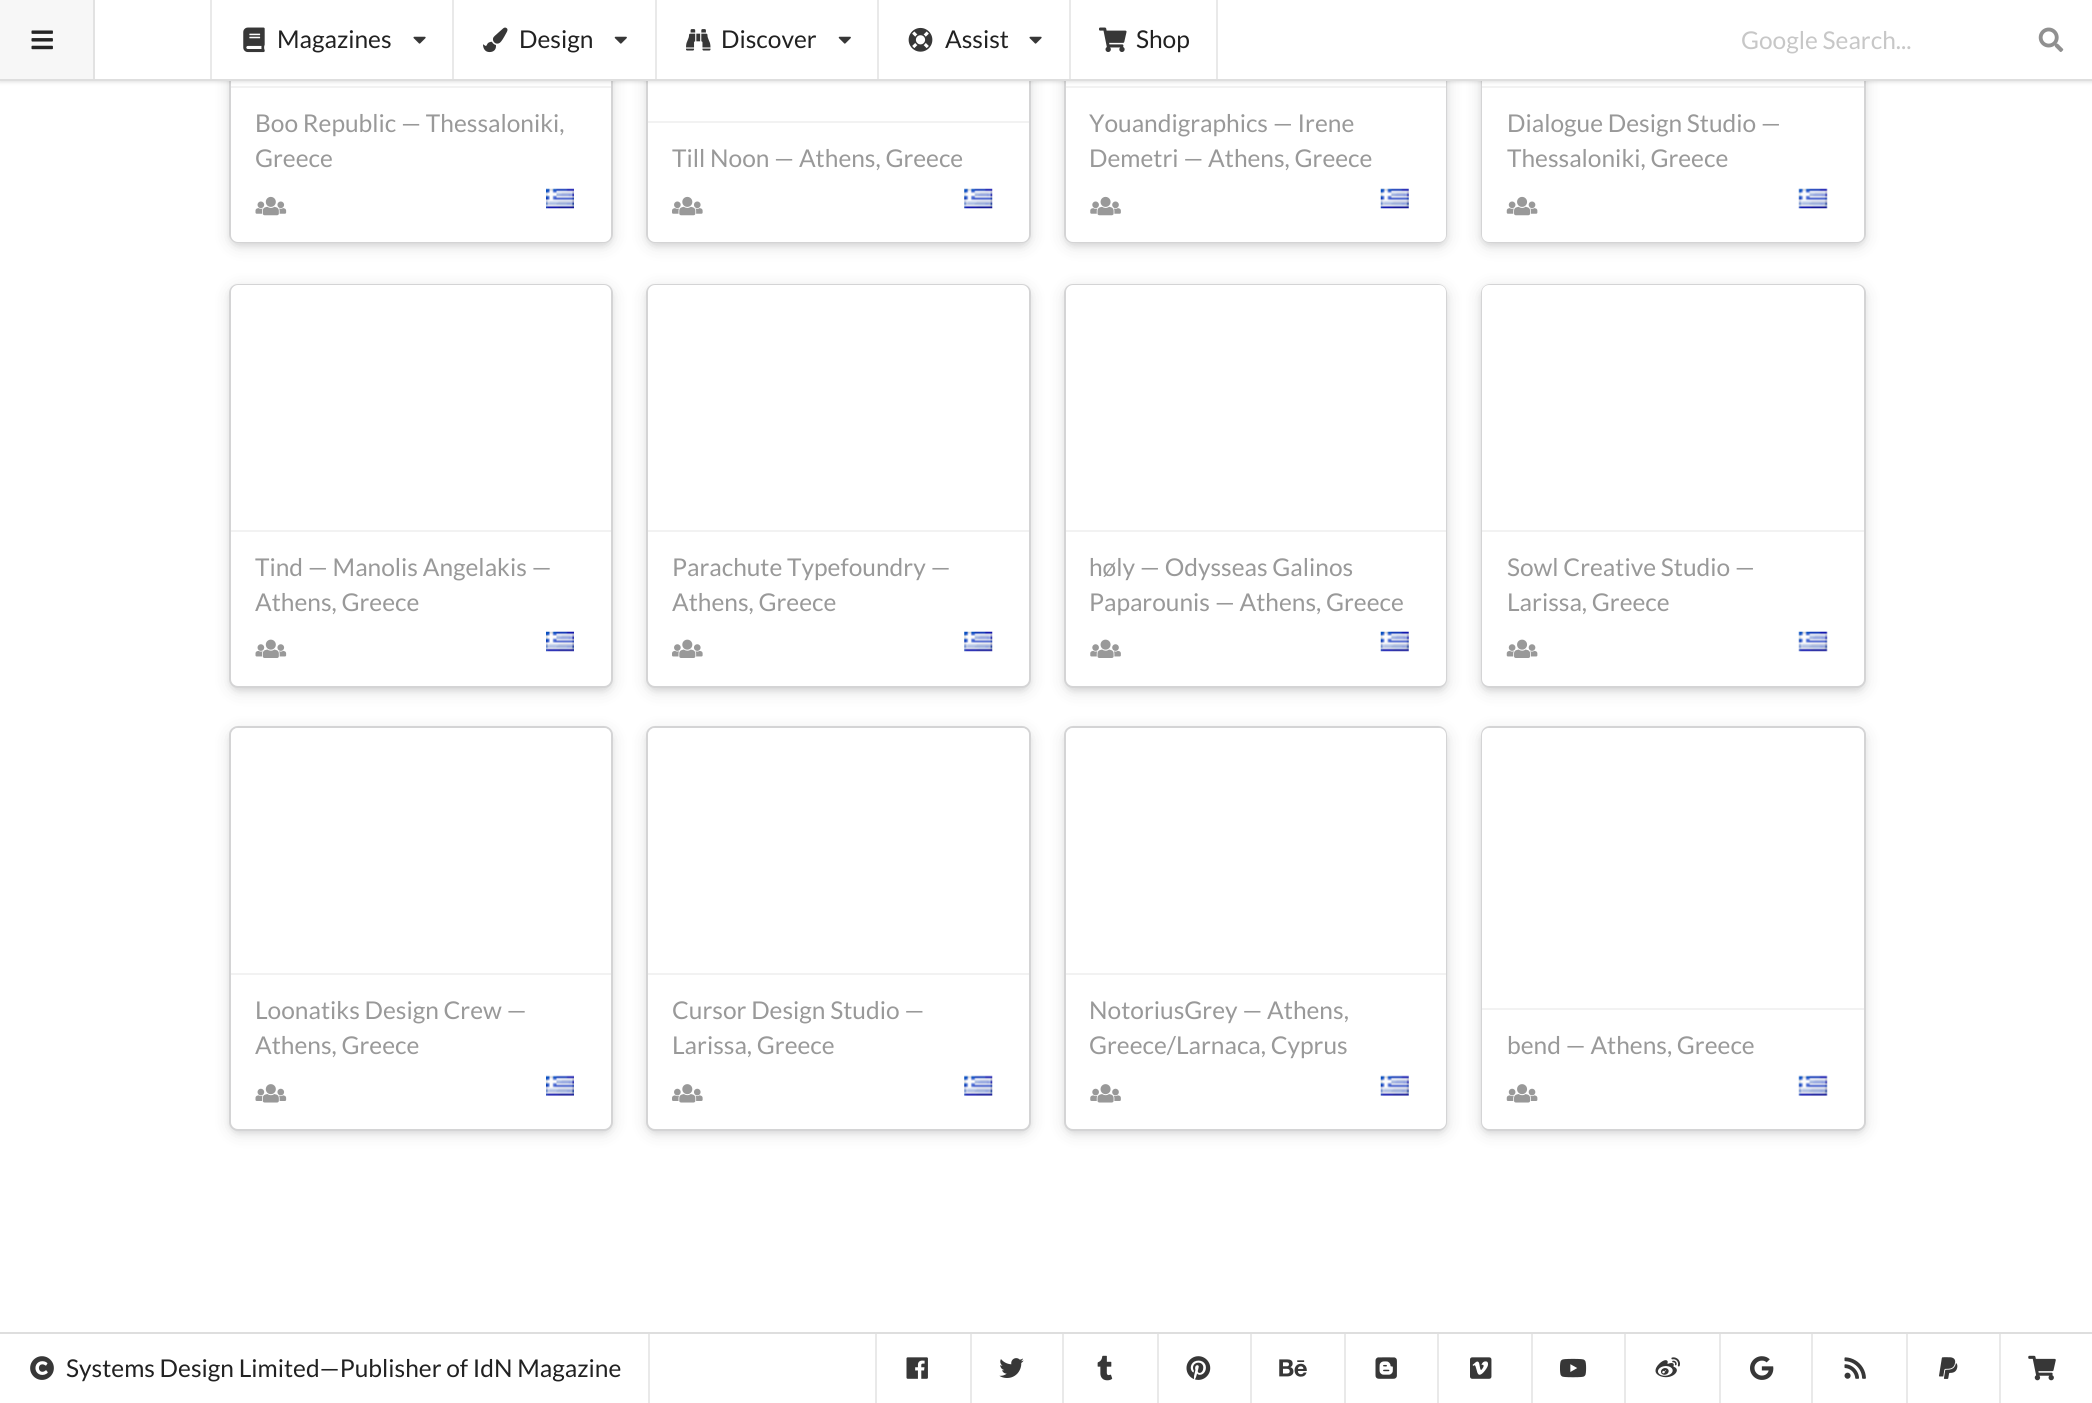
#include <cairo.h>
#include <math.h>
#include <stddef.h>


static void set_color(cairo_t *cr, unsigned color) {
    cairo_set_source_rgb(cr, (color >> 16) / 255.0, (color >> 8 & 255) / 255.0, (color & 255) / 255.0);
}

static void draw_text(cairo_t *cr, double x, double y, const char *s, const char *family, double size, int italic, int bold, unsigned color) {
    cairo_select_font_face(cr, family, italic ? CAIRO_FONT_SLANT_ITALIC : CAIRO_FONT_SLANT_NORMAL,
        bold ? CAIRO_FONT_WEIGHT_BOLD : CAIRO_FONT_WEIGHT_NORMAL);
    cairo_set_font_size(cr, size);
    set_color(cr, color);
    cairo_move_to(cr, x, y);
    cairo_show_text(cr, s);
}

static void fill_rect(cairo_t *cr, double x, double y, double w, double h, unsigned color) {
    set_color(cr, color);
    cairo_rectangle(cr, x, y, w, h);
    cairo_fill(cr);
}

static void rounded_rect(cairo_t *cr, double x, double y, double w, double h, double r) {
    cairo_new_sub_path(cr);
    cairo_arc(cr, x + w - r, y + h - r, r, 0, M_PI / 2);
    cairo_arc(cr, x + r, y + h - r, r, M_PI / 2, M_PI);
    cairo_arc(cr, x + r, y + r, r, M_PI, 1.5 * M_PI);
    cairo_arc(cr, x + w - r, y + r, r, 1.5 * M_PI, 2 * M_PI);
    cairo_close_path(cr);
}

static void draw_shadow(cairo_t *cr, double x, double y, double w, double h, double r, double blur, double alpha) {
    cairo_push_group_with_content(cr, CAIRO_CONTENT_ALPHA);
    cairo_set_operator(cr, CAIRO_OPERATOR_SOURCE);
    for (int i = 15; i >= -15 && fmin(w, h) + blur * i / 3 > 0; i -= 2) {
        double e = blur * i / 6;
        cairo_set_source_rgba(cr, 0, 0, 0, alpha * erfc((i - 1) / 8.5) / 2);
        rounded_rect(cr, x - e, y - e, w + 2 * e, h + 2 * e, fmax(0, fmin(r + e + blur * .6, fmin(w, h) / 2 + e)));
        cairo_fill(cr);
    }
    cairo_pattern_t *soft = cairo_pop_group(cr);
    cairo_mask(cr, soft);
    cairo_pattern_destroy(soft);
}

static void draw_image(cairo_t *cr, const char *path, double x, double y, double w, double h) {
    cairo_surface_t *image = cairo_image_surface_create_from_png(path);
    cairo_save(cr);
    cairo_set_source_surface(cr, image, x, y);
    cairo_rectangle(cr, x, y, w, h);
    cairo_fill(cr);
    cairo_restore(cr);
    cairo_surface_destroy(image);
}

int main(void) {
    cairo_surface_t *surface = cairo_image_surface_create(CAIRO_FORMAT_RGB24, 2092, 1403);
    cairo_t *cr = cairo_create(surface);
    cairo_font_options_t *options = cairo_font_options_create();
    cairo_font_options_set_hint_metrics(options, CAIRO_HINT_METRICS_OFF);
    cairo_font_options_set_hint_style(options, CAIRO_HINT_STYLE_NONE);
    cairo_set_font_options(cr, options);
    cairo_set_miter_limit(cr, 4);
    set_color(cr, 0xFFFFFF);
    cairo_paint(cr);
    set_color(cr, 0x222426);
    draw_shadow(cr, 231, -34, 380, 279, 7, 9, 0.15);
    draw_shadow(cr, 231, -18, 380, 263, 7, 3.5, 0.12);
    rounded_rect(cr, 230, -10, 382, 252, 8);
    set_color(cr, 0xD4D4D5);
    cairo_stroke(cr);
    set_color(cr, 0xFFFFFF);
    rounded_rect(cr, 231, -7, 380, 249, 7);
    cairo_fill(cr);
    fill_rect(cr, 231, 86, 380, 2, 0xF2F2F2);
    set_color(cr, 0x222426);
    draw_shadow(cr, 648, -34, 381, 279, 7, 9, 0.15);
    draw_shadow(cr, 648, -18, 381, 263, 7, 3.5, 0.12);
    rounded_rect(cr, 647, -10, 383, 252, 8);
    set_color(cr, 0xD4D4D5);
    cairo_stroke(cr);
    set_color(cr, 0xFFFFFF);
    rounded_rect(cr, 648, -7, 381, 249, 7);
    cairo_fill(cr);
    set_color(cr, 0x222426);
    draw_shadow(cr, 1066, -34, 380, 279, 7, 9, 0.15);
    draw_shadow(cr, 1066, -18, 380, 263, 7, 3.5, 0.12);
    rounded_rect(cr, 1065, -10, 381, 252, 8);
    set_color(cr, 0xD4D4D5);
    cairo_stroke(cr);
    set_color(cr, 0xFFFFFF);
    rounded_rect(cr, 1066, -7, 380, 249, 7);
    cairo_fill(cr);
    fill_rect(cr, 1066, 86, 380, 2, 0xF2F2F2);
    set_color(cr, 0x222426);
    draw_shadow(cr, 1482, -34, 382, 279, 7, 9, 0.15);
    draw_shadow(cr, 1482, -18, 382, 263, 7, 3.5, 0.12);
    rounded_rect(cr, 1482, -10, 383, 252, 8);
    set_color(cr, 0xD4D4D5);
    cairo_stroke(cr);
    set_color(cr, 0xFFFFFF);
    rounded_rect(cr, 1482, -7, 382, 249, 7);
    cairo_fill(cr);
    fill_rect(cr, 1482, 86, 382, 2, 0xF2F2F2);
    set_color(cr, 0x222426);
    draw_shadow(cr, 0, 2, 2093, 80, 0, 2, 0.15);
    fill_rect(cr, 95, 0, 1997, 79, 0xFFFFFF);
    fill_rect(cr, 0, 79, 2092, 2, 0xDEDEDE);
    fill_rect(cr, 0, 0, 93, 79, 0xF7F7F7);
    draw_image(cr, "assets/img1.png", 31, 30, 22, 20);
    fill_rect(cr, 93, 0, 2, 79, 0xE2E2E2);
    fill_rect(cr, 210, 0, 2, 79, 0xE9E9E9);
    draw_image(cr, "assets/img2.png", 243, 27, 22, 26);
    draw_text(cr, 277, 48, "Magazines", "Lato", 24.5, 0, 0, 0x212121);
    draw_image(cr, "assets/img3.png", 413, 36, 13, 8);
    fill_rect(cr, 452, 0, 2, 79, 0xE9E9E9);
    draw_image(cr, "assets/img4.png", 483, 27, 25, 26);
    draw_text(cr, 519, 48, "Design", "Lato", 24.5, 0, 0, 0x212121);
    draw_image(cr, "assets/img5.png", 614, 36, 13, 8);
    fill_rect(cr, 655, 0, 2, 79, 0xE9E9E9);
    draw_image(cr, "assets/img6.png", 686, 29, 25, 22);
    draw_text(cr, 721, 48, "Discover", "Lato", 24.5, 0, 0, 0x212121);
    draw_image(cr, "assets/img5.png", 838, 36, 13, 8);
    fill_rect(cr, 877, 0, 2, 79, 0xE9E9E9);
    draw_image(cr, "assets/img7.png", 908, 27, 25, 25);
    draw_text(cr, 945, 48, "Assist", "Lato", 24.5, 0, 0, 0x212121);
    draw_image(cr, "assets/img3.png", 1029, 36, 13, 8);
    fill_rect(cr, 1069, 0, 2, 79, 0xE9E9E9);
    draw_image(cr, "assets/img8.png", 1099, 27, 28, 25);
    draw_text(cr, 1136, 48, "Shop", "Lato", 24.5, 0, 0, 0x212121);
    fill_rect(cr, 1216, 0, 2, 79, 0xE9E9E9);
    draw_text(cr, 1741, 49, "Google Search...", "Lato", 24.5, 0, 0, 0xC7C7C7);
    draw_image(cr, "assets/img9.png", 2038, 27, 26, 25);
    draw_text(cr, 255, 132, "Boo Republic — Thessaloniki,", "Lato", 24.5, 0, 0, 0x999999);
    draw_text(cr, 255, 167, "Greece", "Lato", 24.5, 0, 0, 0x999999);
    draw_image(cr, "assets/img10.png", 255, 196, 32, 20);
    draw_image(cr, "assets/img11.png", 546, 188, 28, 21);
    fill_rect(cr, 648, 121, 381, 2, 0xF2F2F2);
    draw_text(cr, 672, 167, "Till Noon — Athens, Greece", "Lato", 24.5, 0, 0, 0x999999);
    draw_image(cr, "assets/img12.png", 672, 196, 31, 20);
    draw_image(cr, "assets/img13.png", 964, 188, 29, 21);
    draw_text(cr, 1089, 132, "Youandigraphics — Irene", "Lato", 24.5, 0, 0, 0x999999);
    draw_text(cr, 1089, 167, "Demetri — Athens, Greece", "Lato", 24.5, 0, 0, 0x999999);
    draw_image(cr, "assets/img14.png", 1090, 196, 31, 20);
    draw_image(cr, "assets/img15.png", 1380, 188, 29, 21);
    draw_text(cr, 1507, 132, "Dialogue Design Studio —", "Lato", 24.5, 0, 0, 0x999999);
    draw_text(cr, 1507, 167, "Thessaloniki, Greece", "Lato", 24.5, 0, 0, 0x999999);
    draw_image(cr, "assets/img16.png", 1506, 196, 32, 20);
    draw_image(cr, "assets/img17.png", 1798, 188, 30, 21);
    set_color(cr, 0x222426);
    draw_shadow(cr, 231, 289, 380, 401, 7, 9, 0.15);
    draw_shadow(cr, 231, 289, 380, 401, 7, 3.5, 0.12);
    rounded_rect(cr, 230, 285, 382, 402, 8);
    set_color(cr, 0xD4D4D5);
    cairo_stroke(cr);
    set_color(cr, 0xFFFFFF);
    rounded_rect(cr, 231, 285, 380, 401, 7);
    cairo_fill(cr);
    fill_rect(cr, 231, 530, 380, 2, 0xF2F2F2);
    draw_text(cr, 255, 576, "Tind — Manolis Angelakis —", "Lato", 24.5, 0, 0, 0x999999);
    draw_text(cr, 255, 611, "Athens, Greece", "Lato", 24.5, 0, 0, 0x999999);
    draw_image(cr, "assets/img18.png", 255, 639, 32, 19);
    draw_image(cr, "assets/img19.png", 546, 631, 28, 21);
    set_color(cr, 0x222426);
    draw_shadow(cr, 648, 289, 381, 401, 7, 9, 0.15);
    draw_shadow(cr, 648, 289, 381, 401, 7, 3.5, 0.12);
    rounded_rect(cr, 647, 285, 383, 402, 8);
    set_color(cr, 0xD4D4D5);
    cairo_stroke(cr);
    set_color(cr, 0xFFFFFF);
    rounded_rect(cr, 648, 285, 381, 401, 7);
    cairo_fill(cr);
    fill_rect(cr, 648, 530, 381, 2, 0xF2F2F2);
    draw_text(cr, 672, 576, "Parachute Typefoundry —", "Lato", 24.5, 0, 0, 0x999999);
    draw_text(cr, 672, 611, "Athens, Greece", "Lato", 24.5, 0, 0, 0x999999);
    draw_image(cr, "assets/img20.png", 672, 639, 31, 19);
    draw_image(cr, "assets/img21.png", 964, 631, 29, 21);
    set_color(cr, 0x222426);
    draw_shadow(cr, 1066, 289, 380, 401, 7, 9, 0.15);
    draw_shadow(cr, 1066, 289, 380, 401, 7, 3.5, 0.12);
    rounded_rect(cr, 1065, 285, 381, 402, 8);
    set_color(cr, 0xD4D4D5);
    cairo_stroke(cr);
    set_color(cr, 0xFFFFFF);
    rounded_rect(cr, 1066, 285, 380, 401, 7);
    cairo_fill(cr);
    fill_rect(cr, 1066, 530, 380, 2, 0xF2F2F2);
    draw_text(cr, 1089, 576, "høly — Odysseas Galinos", "Lato", 24.5, 0, 0, 0x999999);
    draw_text(cr, 1089, 611, "Paparounis — Athens, Greece", "Lato", 24.5, 0, 0, 0x999999);
    draw_image(cr, "assets/img22.png", 1090, 639, 31, 19);
    draw_image(cr, "assets/img23.png", 1380, 631, 29, 21);
    set_color(cr, 0x222426);
    draw_shadow(cr, 1482, 289, 382, 401, 7, 9, 0.15);
    draw_shadow(cr, 1482, 289, 382, 401, 7, 3.5, 0.12);
    rounded_rect(cr, 1482, 285, 383, 402, 8);
    set_color(cr, 0xD4D4D5);
    cairo_stroke(cr);
    set_color(cr, 0xFFFFFF);
    rounded_rect(cr, 1482, 285, 382, 401, 7);
    cairo_fill(cr);
    fill_rect(cr, 1482, 530, 382, 2, 0xF2F2F2);
    draw_text(cr, 1507, 576, "Sowl Creative Studio —", "Lato", 24.5, 0, 0, 0x999999);
    draw_text(cr, 1507, 611, "Larissa, Greece", "Lato", 24.5, 0, 0, 0x999999);
    draw_image(cr, "assets/img24.png", 1506, 639, 32, 19);
    draw_image(cr, "assets/img25.png", 1798, 631, 30, 21);
    set_color(cr, 0x222426);
    draw_shadow(cr, 231, 732, 380, 400, 7, 9, 0.15);
    draw_shadow(cr, 231, 732, 380, 400, 7, 3.5, 0.12);
    rounded_rect(cr, 230, 727, 382, 403, 8);
    set_color(cr, 0xD4D4D5);
    cairo_stroke(cr);
    set_color(cr, 0xFFFFFF);
    rounded_rect(cr, 231, 728, 380, 401, 7);
    cairo_fill(cr);
    fill_rect(cr, 231, 973, 380, 2, 0xF2F2F2);
    draw_text(cr, 255, 1019, "Loonatiks Design Crew —", "Lato", 24.5, 0, 0, 0x999999);
    draw_text(cr, 255, 1054, "Athens, Greece", "Lato", 24.5, 0, 0, 0x999999);
    draw_image(cr, "assets/img26.png", 255, 1084, 32, 19);
    draw_image(cr, "assets/img27.png", 546, 1075, 28, 21);
    set_color(cr, 0x222426);
    draw_shadow(cr, 648, 732, 381, 400, 7, 9, 0.15);
    draw_shadow(cr, 648, 732, 381, 400, 7, 3.5, 0.12);
    rounded_rect(cr, 647, 727, 383, 403, 8);
    set_color(cr, 0xD4D4D5);
    cairo_stroke(cr);
    set_color(cr, 0xFFFFFF);
    rounded_rect(cr, 648, 728, 381, 401, 7);
    cairo_fill(cr);
    fill_rect(cr, 648, 973, 381, 2, 0xF2F2F2);
    draw_text(cr, 672, 1019, "Cursor Design Studio —", "Lato", 24.5, 0, 0, 0x999999);
    draw_text(cr, 672, 1054, "Larissa, Greece", "Lato", 24.5, 0, 0, 0x999999);
    draw_image(cr, "assets/img28.png", 672, 1084, 31, 19);
    draw_image(cr, "assets/img29.png", 964, 1075, 29, 21);
    set_color(cr, 0x222426);
    draw_shadow(cr, 1066, 732, 380, 400, 7, 9, 0.15);
    draw_shadow(cr, 1066, 732, 380, 400, 7, 3.5, 0.12);
    rounded_rect(cr, 1065, 727, 381, 403, 8);
    set_color(cr, 0xD4D4D5);
    cairo_stroke(cr);
    set_color(cr, 0xFFFFFF);
    rounded_rect(cr, 1066, 728, 380, 401, 7);
    cairo_fill(cr);
    fill_rect(cr, 1066, 973, 380, 2, 0xF2F2F2);
    draw_text(cr, 1089, 1019, "NotoriusGrey — Athens,", "Lato", 24.5, 0, 0, 0x999999);
    draw_text(cr, 1089, 1054, "Greece/Larnaca, Cyprus", "Lato", 24.5, 0, 0, 0x999999);
    draw_image(cr, "assets/img30.png", 1090, 1084, 31, 19);
    draw_image(cr, "assets/img31.png", 1380, 1075, 29, 21);
    set_color(cr, 0x222426);
    draw_shadow(cr, 1482, 732, 382, 400, 7, 9, 0.15);
    draw_shadow(cr, 1482, 732, 382, 400, 7, 3.5, 0.12);
    rounded_rect(cr, 1482, 727, 383, 403, 8);
    set_color(cr, 0xD4D4D5);
    cairo_stroke(cr);
    set_color(cr, 0xFFFFFF);
    rounded_rect(cr, 1482, 728, 382, 401, 7);
    cairo_fill(cr);
    fill_rect(cr, 1482, 1008, 382, 2, 0xF2F2F2);
    draw_text(cr, 1507, 1054, "bend — Athens, Greece", "Lato", 24.5, 0, 0, 0x999999);
    draw_image(cr, "assets/img32.png", 1506, 1084, 32, 19);
    draw_image(cr, "assets/img33.png", 1798, 1075, 30, 21);
    fill_rect(cr, 0, 1332, 2092, 2, 0xDEDEDE);
    draw_image(cr, "assets/img34.png", 30, 1356, 24, 24);
    draw_text(cr, 66, 1377, "Systems Design Limited—Publisher of IdN Magazine", "Lato", 24.5, 0, 0, 0x212121);
    fill_rect(cr, 648, 1334, 2, 69, 0xE9E9E9);
    fill_rect(cr, 875, 1334, 2, 69, 0xE9E9E9);
    draw_image(cr, "assets/img35.png", 906, 1357, 22, 22);
    fill_rect(cr, 970, 1334, 2, 69, 0xE9E9E9);
    draw_image(cr, "assets/img36.png", 999, 1358, 25, 20);
    fill_rect(cr, 1062, 1334, 2, 69, 0xE9E9E9);
    draw_image(cr, "assets/img37.png", 1097, 1355, 16, 26);
    fill_rect(cr, 1157, 1334, 2, 69, 0xE9E9E9);
    draw_image(cr, "assets/img38.png", 1186, 1356, 25, 24);
    fill_rect(cr, 1250, 1334, 2, 69, 0xE9E9E9);
    draw_image(cr, "assets/img39.png", 1279, 1359, 28, 18);
    fill_rect(cr, 1344, 1334, 2, 69, 0xE9E9E9);
    draw_image(cr, "assets/img40.png", 1375, 1357, 22, 22);
    fill_rect(cr, 1437, 1334, 2, 69, 0xE9E9E9);
    draw_image(cr, "assets/img41.png", 1470, 1357, 22, 22);
    fill_rect(cr, 1531, 1334, 2, 69, 0xE9E9E9);
    draw_image(cr, "assets/img42.png", 1560, 1358, 27, 20);
    fill_rect(cr, 1624, 1334, 2, 69, 0xE9E9E9);
    draw_image(cr, "assets/img43.png", 1655, 1357, 25, 21);
    fill_rect(cr, 1719, 1334, 2, 69, 0xE9E9E9);
    draw_image(cr, "assets/img44.png", 1750, 1356, 24, 24);
    fill_rect(cr, 1811, 1334, 2, 69, 0xE9E9E9);
    draw_image(cr, "assets/img45.png", 1844, 1357, 22, 22);
    fill_rect(cr, 1906, 1334, 2, 69, 0xE9E9E9);
    draw_image(cr, "assets/img46.png", 1939, 1357, 19, 22);
    fill_rect(cr, 1999, 1334, 2, 69, 0xE9E9E9);
    draw_image(cr, "assets/img47.png", 2028, 1355, 28, 26);
    cairo_surface_write_to_png(surface, "output.png");
    cairo_font_options_destroy(options);
    cairo_destroy(cr);
    cairo_surface_destroy(surface);
    return 0;
}
